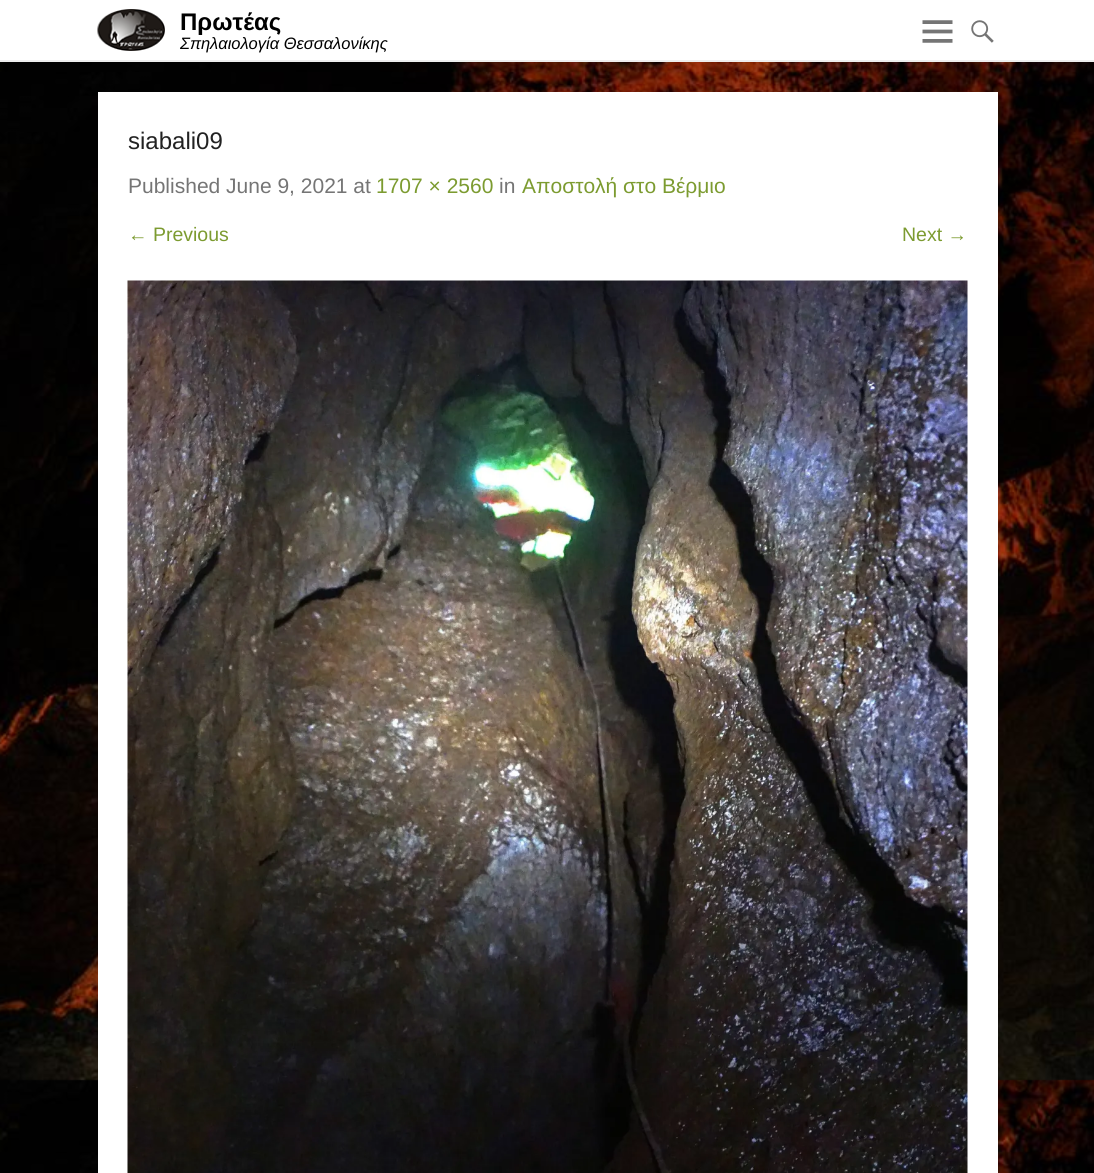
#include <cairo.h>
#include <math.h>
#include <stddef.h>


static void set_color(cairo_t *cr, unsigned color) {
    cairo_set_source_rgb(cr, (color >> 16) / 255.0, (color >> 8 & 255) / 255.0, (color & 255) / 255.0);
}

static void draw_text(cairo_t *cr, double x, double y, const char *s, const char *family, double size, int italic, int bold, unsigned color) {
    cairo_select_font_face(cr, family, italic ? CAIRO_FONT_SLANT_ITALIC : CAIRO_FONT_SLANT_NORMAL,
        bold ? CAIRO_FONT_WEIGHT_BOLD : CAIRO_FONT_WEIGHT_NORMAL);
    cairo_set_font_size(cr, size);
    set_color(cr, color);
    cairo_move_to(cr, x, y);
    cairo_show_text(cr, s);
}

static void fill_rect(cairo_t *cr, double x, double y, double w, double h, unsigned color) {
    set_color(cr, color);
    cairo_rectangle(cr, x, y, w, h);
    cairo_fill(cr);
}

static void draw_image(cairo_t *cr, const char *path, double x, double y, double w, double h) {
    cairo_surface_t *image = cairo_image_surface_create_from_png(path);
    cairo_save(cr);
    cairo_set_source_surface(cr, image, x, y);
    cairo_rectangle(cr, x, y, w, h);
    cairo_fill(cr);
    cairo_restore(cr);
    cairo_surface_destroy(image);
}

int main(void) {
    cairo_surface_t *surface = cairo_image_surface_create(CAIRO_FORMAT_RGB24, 1094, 1173);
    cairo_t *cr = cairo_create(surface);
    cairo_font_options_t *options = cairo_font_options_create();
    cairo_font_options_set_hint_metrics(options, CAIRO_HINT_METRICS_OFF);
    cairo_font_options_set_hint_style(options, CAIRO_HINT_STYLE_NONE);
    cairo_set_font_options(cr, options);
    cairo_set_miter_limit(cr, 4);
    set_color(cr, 0xFFFFFF);
    cairo_paint(cr);
    draw_image(cr, "assets/img1.png", 0, 62, 1094, 1111);
    fill_rect(cr, 0, 60, 1094, 2, 0xEEEEEE);
    draw_image(cr, "assets/img2.png", 97, 9, 68, 42);
    draw_text(cr, 180, 30, "Πρωτέας", "Liberation Sans", 24, 0, 1, 0x000000);
    draw_text(cr, 180, 49, "Σπηλαιολογία Θεσσαλονίκης", "Liberation Sans", 16.5, 1, 0, 0x000000);
    draw_image(cr, "assets/img3.png", 922, 20, 31, 23);
    draw_image(cr, "assets/img4.png", 971, 20, 23, 23);
    fill_rect(cr, 98, 92, 900, 1081, 0xFFFFFF);
    draw_text(cr, 128, 149, "siabali09", "Liberation Sans", 24, 0, 0, 0x222222);
    draw_text(cr, 128, 193, "Published June 9, 2021 at", "Liberation Sans", 21, 0, 0, 0x757575);
    draw_text(cr, 376, 193, "1707 × 2560", "Liberation Sans", 21, 0, 0, 0x7C9B30);
    draw_text(cr, 499, 193, "in", "Liberation Sans", 21, 0, 0, 0x757575);
    draw_text(cr, 522, 193, "Αποστολή στο Βέρμιο", "Liberation Sans", 21, 0, 0, 0x7C9B30);
    draw_text(cr, 128, 241, "← Previous", "Liberation Sans", 19.5, 0, 0, 0x7C9B30);
    draw_text(cr, 902, 241, "Next →", "Liberation Sans", 19.5, 0, 0, 0x7C9B30);
    draw_image(cr, "assets/img5.png", 127, 280, 841, 893);
    cairo_surface_write_to_png(surface, "output.png");
    cairo_font_options_destroy(options);
    cairo_destroy(cr);
    cairo_surface_destroy(surface);
    return 0;
}
